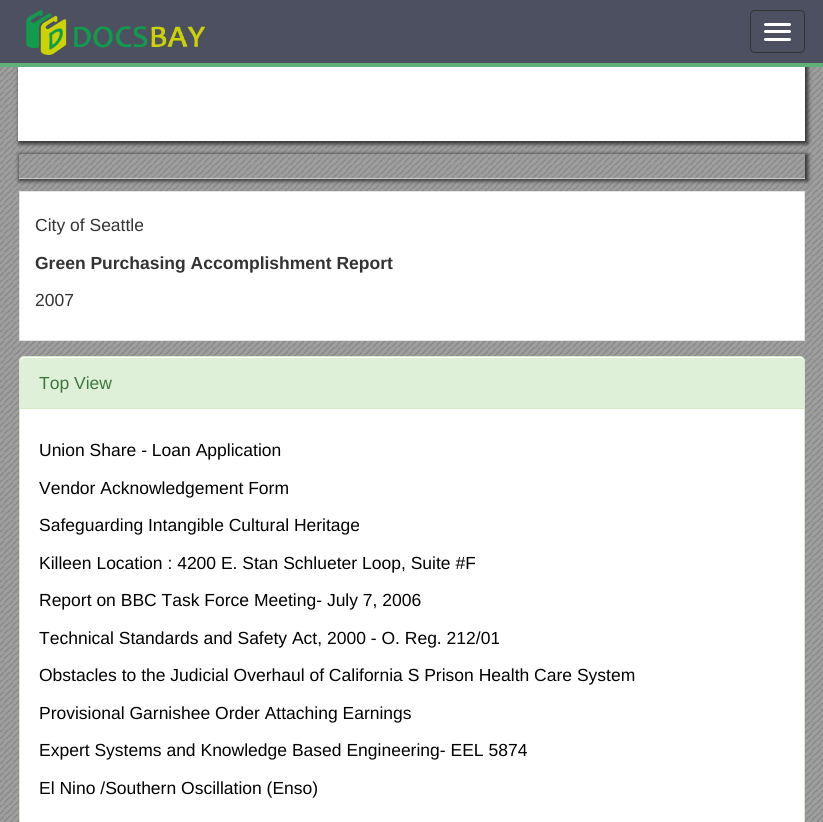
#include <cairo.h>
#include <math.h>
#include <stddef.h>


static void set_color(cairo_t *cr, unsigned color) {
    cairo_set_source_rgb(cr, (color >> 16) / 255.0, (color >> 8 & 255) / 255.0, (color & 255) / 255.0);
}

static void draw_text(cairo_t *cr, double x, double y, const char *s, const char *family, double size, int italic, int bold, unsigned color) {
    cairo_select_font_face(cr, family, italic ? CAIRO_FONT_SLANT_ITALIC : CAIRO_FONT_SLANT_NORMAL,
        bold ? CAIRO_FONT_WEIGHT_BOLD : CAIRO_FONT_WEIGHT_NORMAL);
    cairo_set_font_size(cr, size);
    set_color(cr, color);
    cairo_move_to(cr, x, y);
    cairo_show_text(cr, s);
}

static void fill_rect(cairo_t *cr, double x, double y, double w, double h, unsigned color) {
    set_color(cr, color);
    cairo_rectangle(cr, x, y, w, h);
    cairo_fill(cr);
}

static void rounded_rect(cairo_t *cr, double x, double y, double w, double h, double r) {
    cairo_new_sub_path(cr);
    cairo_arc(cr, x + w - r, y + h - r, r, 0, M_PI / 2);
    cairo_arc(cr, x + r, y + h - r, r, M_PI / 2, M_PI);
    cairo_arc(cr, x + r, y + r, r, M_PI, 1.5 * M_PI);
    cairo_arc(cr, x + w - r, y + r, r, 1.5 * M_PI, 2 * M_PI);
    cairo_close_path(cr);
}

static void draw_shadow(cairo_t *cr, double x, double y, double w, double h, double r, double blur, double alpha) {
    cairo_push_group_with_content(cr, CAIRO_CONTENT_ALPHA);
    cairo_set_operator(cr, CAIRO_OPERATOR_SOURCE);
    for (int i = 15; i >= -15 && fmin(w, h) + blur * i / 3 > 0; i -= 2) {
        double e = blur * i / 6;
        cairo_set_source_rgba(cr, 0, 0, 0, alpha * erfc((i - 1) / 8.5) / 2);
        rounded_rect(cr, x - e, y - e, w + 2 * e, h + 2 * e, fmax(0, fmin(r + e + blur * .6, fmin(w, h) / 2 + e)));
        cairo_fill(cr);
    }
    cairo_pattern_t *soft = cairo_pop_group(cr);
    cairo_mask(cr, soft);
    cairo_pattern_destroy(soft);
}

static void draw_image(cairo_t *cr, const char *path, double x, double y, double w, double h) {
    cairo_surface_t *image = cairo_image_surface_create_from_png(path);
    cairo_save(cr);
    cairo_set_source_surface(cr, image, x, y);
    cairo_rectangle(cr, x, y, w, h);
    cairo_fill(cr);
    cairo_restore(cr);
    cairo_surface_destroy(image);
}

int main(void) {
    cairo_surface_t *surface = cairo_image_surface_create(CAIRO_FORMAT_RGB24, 823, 822);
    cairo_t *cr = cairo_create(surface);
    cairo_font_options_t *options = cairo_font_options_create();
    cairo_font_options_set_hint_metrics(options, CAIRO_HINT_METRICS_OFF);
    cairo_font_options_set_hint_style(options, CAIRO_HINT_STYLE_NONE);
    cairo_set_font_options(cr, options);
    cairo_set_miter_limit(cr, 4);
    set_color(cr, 0xFFFFFF);
    cairo_paint(cr);
    draw_image(cr, "assets/img1.png", 0, 67, 823, 755);
    fill_rect(cr, 19, 178, 786, 1, 0xFFFFFF);
    draw_image(cr, "assets/img3.png", 18, 141, 787, 38);
    set_color(cr, 0x333333);
    draw_shadow(cr, 19, -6, 789, 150, 0, 2, 1);
    fill_rect(cr, 0, 0, 823, 63, 0x4D5061);
    fill_rect(cr, 0, 63, 823, 4, 0x60B078);
    draw_image(cr, "assets/img2.png", 26, 10, 179, 45);
    rounded_rect(cr, 750.5, 10.5, 54, 42, 4.5);
    set_color(cr, 0x333333);
    cairo_set_line_width(cr, 1);
    cairo_stroke(cr);
    set_color(cr, 0xFFFFFF);
    rounded_rect(cr, 764, 23, 27, 3, 1.5);
    cairo_fill(cr);
    rounded_rect(cr, 764, 30, 27, 3, 1.5);
    cairo_fill(cr);
    rounded_rect(cr, 764, 38, 27, 3, 1.5);
    cairo_fill(cr);
    fill_rect(cr, 18, 67, 787, 74, 0xFFFFFF);
    cairo_save(cr);
    cairo_set_fill_rule(cr, CAIRO_FILL_RULE_EVEN_ODD);
    cairo_new_path(cr);
    cairo_move_to(cr, 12, 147);
    cairo_line_to(cr, 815, 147);
    cairo_line_to(cr, 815, 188);
    cairo_line_to(cr, 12, 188);
    cairo_close_path(cr);
    cairo_move_to(cr, 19, 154);
    cairo_line_to(cr, 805, 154);
    cairo_line_to(cr, 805, 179);
    cairo_line_to(cr, 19, 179);
    cairo_close_path(cr);
    cairo_clip(cr);
    set_color(cr, 0x333333);
    draw_shadow(cr, 19, 154, 789, 27, 0, 2, 1);
    cairo_restore(cr);
    cairo_rectangle(cr, 19.5, 191.5, 785, 149);
    cairo_fill_preserve(cr);
    set_color(cr, 0xE5E5E5);
    cairo_stroke(cr);
    draw_text(cr, 35, 231, "City of Seattle", "Liberation Sans", 17.5, 0, 0, 0x333333);
    draw_text(cr, 35, 269, "Green Purchasing Accomplishment Report", "Liberation Sans", 17.5, 0, 1, 0x333333);
    draw_text(cr, 35, 306, "2007", "Liberation Sans", 17.5, 0, 0, 0x333333);
    set_color(cr, 0xFFFFFF);
    rounded_rect(cr, 19.5, 356.5, 785, 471, 4.5);
    cairo_fill_preserve(cr);
    set_color(cr, 0xD6E9C6);
    cairo_stroke(cr);
    set_color(cr, 0xDFF0D8);
    cairo_new_path(cr);
    cairo_move_to(cr, 24, 358);
    cairo_line_to(cr, 800, 358);
    cairo_curve_to(cr, 802, 358, 804, 360, 804, 362);
    cairo_line_to(cr, 804, 409);
    cairo_line_to(cr, 20, 409);
    cairo_line_to(cr, 20, 362);
    cairo_curve_to(cr, 20, 360, 22, 358, 24, 358);
    cairo_close_path(cr);
    cairo_fill(cr);
    fill_rect(cr, 20, 408, 784, 1, 0xD6E9C6);
    draw_text(cr, 39, 389, "Top View", "Liberation Sans", 17.5, 0, 0, 0x3C763D);
    draw_text(cr, 39, 456, "Union Share - Loan Application", "Liberation Sans", 17.5, 0, 0, 0x000000);
    draw_text(cr, 39, 494, "Vendor Acknowledgement Form", "Liberation Sans", 17.5, 0, 0, 0x000000);
    draw_text(cr, 39, 531, "Safeguarding Intangible Cultural Heritage", "Liberation Sans", 17.5, 0, 0, 0x000000);
    draw_text(cr, 39, 569, "Killeen Location : 4200 E. Stan Schlueter Loop, Suite #F", "Liberation Sans", 17.5, 0, 0, 0x000000);
    draw_text(cr, 39, 606, "Report on BBC Task Force Meeting- July 7, 2006", "Liberation Sans", 17.5, 0, 0, 0x000000);
    draw_text(cr, 39, 644, "Technical Standards and Safety Act, 2000 - O. Reg. 212/01", "Liberation Sans", 17.5, 0, 0, 0x000000);
    draw_text(cr, 39, 681, "Obstacles to the Judicial Overhaul of California S Prison Health Care System", "Liberation Sans", 17.5, 0, 0, 0x000000);
    draw_text(cr, 39, 719, "Provisional Garnishee Order Attaching Earnings", "Liberation Sans", 17.5, 0, 0, 0x000000);
    draw_text(cr, 39, 756, "Expert Systems and Knowledge Based Engineering- EEL 5874", "Liberation Sans", 17.5, 0, 0, 0x000000);
    draw_text(cr, 39, 794, "El Nino /Southern Oscillation (Enso)", "Liberation Sans", 17.5, 0, 0, 0x000000);
    cairo_surface_write_to_png(surface, "output.png");
    cairo_font_options_destroy(options);
    cairo_destroy(cr);
    cairo_surface_destroy(surface);
    return 0;
}
